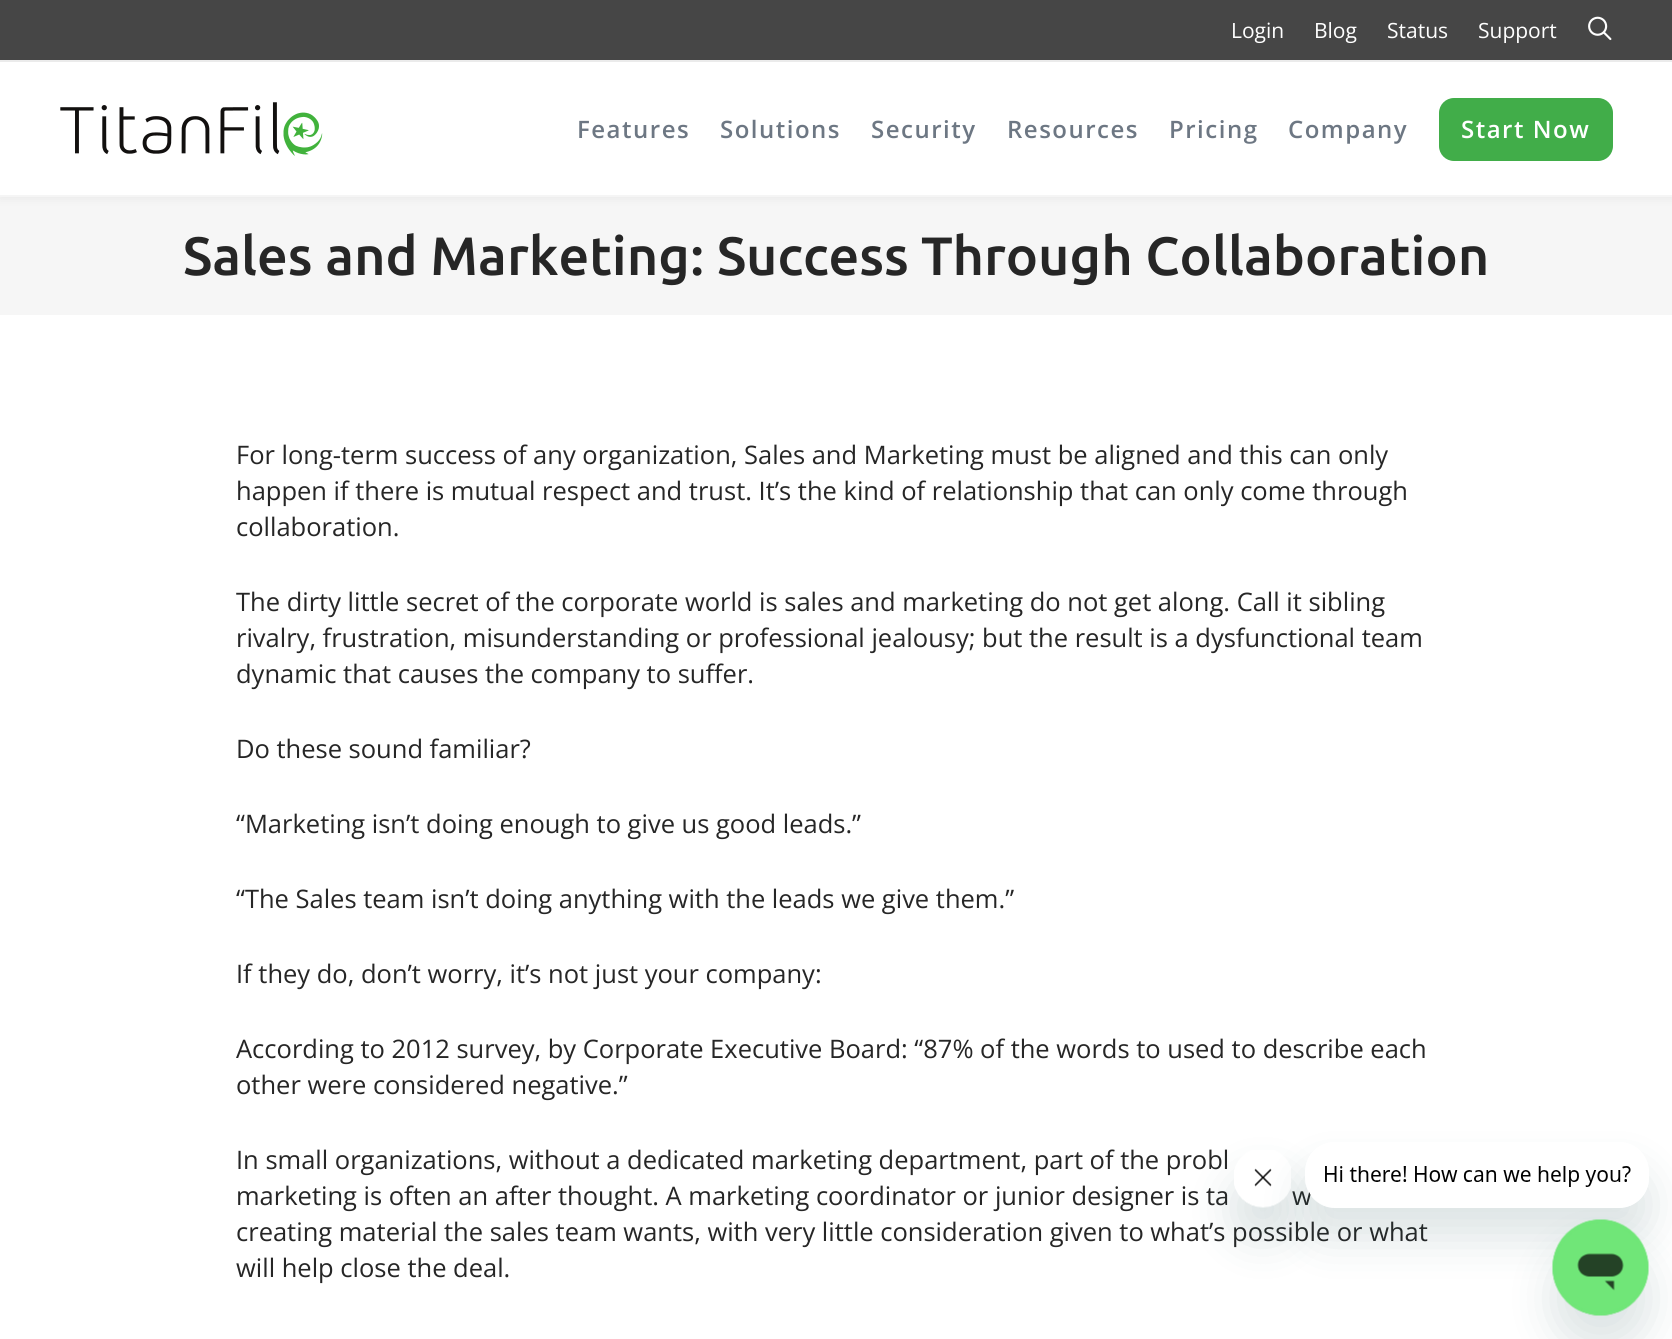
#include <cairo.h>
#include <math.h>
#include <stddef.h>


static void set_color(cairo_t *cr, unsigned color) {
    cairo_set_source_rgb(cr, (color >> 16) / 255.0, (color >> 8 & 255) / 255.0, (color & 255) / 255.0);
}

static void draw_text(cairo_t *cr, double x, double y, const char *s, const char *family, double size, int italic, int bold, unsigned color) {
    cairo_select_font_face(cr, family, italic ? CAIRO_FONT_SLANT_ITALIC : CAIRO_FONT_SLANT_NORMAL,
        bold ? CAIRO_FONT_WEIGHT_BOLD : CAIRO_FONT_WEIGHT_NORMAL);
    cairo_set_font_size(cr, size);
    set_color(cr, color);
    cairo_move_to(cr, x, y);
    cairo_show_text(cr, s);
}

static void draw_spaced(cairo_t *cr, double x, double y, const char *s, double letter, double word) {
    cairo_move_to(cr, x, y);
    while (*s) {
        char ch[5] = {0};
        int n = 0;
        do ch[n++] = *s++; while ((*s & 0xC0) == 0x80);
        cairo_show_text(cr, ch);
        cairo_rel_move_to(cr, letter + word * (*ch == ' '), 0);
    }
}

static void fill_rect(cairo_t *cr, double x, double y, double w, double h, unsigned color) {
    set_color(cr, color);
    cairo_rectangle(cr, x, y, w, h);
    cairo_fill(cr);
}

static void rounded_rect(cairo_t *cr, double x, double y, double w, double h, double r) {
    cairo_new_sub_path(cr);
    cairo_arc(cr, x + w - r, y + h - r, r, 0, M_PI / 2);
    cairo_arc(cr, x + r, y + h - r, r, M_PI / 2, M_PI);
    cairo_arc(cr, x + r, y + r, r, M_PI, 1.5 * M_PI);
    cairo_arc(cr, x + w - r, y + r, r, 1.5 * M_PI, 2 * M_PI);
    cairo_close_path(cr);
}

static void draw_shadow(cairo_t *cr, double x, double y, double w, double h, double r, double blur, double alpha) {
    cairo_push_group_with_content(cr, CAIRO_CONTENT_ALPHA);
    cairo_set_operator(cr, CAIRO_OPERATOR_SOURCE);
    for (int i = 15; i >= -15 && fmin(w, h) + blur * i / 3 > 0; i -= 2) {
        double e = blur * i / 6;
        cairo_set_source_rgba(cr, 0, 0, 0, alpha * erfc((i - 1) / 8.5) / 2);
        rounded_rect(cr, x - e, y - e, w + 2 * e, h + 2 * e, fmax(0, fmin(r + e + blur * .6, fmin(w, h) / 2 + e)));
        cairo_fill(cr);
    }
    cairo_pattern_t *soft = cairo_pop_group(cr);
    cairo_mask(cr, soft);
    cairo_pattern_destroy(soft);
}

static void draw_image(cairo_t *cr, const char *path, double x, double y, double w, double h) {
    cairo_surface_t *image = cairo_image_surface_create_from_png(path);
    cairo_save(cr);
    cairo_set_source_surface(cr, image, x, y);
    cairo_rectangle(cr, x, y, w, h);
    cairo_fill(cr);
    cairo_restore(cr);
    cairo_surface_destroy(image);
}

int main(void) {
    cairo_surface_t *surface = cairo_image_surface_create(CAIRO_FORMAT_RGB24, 1672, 1339);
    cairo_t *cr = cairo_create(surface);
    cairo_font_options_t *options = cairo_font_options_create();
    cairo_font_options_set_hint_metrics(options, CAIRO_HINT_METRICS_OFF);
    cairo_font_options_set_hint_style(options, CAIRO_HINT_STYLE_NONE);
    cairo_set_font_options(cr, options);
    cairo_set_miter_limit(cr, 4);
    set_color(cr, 0xFFFFFF);
    cairo_paint(cr);
    fill_rect(cr, 0, 197, 1672, 118, 0xF6F6F6);
    set_color(cr, 0x000000);
    draw_shadow(cr, 0, 62, 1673, 135, 0, 6, 0.07);
    fill_rect(cr, 0, 0, 1672, 60, 0x464646);
    fill_rect(cr, 0, 60, 1672, 2, 0xEBEBEB);
    draw_text(cr, 1231, 38, "Login", "Open Sans", 21, 0, 0, 0xFFFFFF);
    draw_text(cr, 1314, 38, "Blog", "Open Sans", 21, 0, 0, 0xFFFFFF);
    draw_text(cr, 1387, 38, "Status", "Open Sans", 21, 0, 0, 0xFFFFFF);
    draw_text(cr, 1478, 38, "Support", "Open Sans", 21, 0, 0, 0xFFFFFF);
    draw_image(cr, "assets/img1.png", 1588, 16, 24, 25);
    fill_rect(cr, 0, 62, 1672, 133, 0xFFFFFF);
    fill_rect(cr, 0, 195, 1672, 2, 0xF5F5F5);
    draw_image(cr, "assets/img2.png", 60, 102, 263, 54);
    cairo_select_font_face(cr, "Open Sans SemiBold", CAIRO_FONT_SLANT_NORMAL, CAIRO_FONT_WEIGHT_NORMAL);
    cairo_set_font_size(cr, 24);
    set_color(cr, 0x6D7783);
    draw_spaced(cr, 577, 138, "Features", 1.5, 0);
    draw_spaced(cr, 720, 138, "Solutions", 1.5, 0);
    draw_spaced(cr, 871, 138, "Security", 1.5, 0);
    draw_spaced(cr, 1007, 138, "Resources", 1.5, 0);
    draw_spaced(cr, 1169, 138, "Pricing", 1.5, 0);
    draw_spaced(cr, 1288, 138, "Company", 1.5, 0);
    set_color(cr, 0x41AD49);
    rounded_rect(cr, 1439, 98, 174, 63, 15);
    cairo_fill(cr);
    set_color(cr, 0xFFFFFF);
    draw_spaced(cr, 1461, 138, "Start Now", 1.5, 0);
    draw_text(cr, 183, 275, "Sales and Marketing: Success Through Collaboration", "Ubuntu Medium", 54, 0, 0, 0x262626);
    draw_text(cr, 236, 464, "For long-term success of any organization, Sales and Marketing must be aligned and this can only", "Open Sans", 25.5, 0, 0, 0x262626);
    draw_text(cr, 236, 500, "happen if there is mutual respect and trust. It’s the kind of relationship that can only come through", "Open Sans", 25.5, 0, 0, 0x262626);
    draw_text(cr, 236, 536, "collaboration.", "Open Sans", 25.5, 0, 0, 0x262626);
    draw_text(cr, 236, 611, "The dirty little secret of the corporate world is sales and marketing do not get along. Call it sibling", "Open Sans", 25.5, 0, 0, 0x262626);
    draw_text(cr, 236, 647, "rivalry, frustration, misunderstanding or professional jealousy; but the result is a dysfunctional team", "Open Sans", 25.5, 0, 0, 0x262626);
    draw_text(cr, 236, 683, "dynamic that causes the company to suffer.", "Open Sans", 25.5, 0, 0, 0x262626);
    draw_text(cr, 236, 758, "Do these sound familiar?", "Open Sans", 25.5, 0, 0, 0x262626);
    draw_text(cr, 236, 833, "“Marketing isn’t doing enough to give us good leads.”", "Open Sans", 25.5, 0, 0, 0x262626);
    draw_text(cr, 236, 908, "“The Sales team isn’t doing anything with the leads we give them.”", "Open Sans", 25.5, 0, 0, 0x262626);
    draw_text(cr, 236, 983, "If they do, don’t worry, it’s not just your company:", "Open Sans", 25.5, 0, 0, 0x262626);
    draw_text(cr, 236, 1058, "According to 2012 survey, by Corporate Executive Board: “87% of the words to used to describe each", "Open Sans", 25.5, 0, 0, 0x262626);
    draw_text(cr, 236, 1094, "other were considered negative.”", "Open Sans", 25.5, 0, 0, 0x262626);
    draw_text(cr, 236, 1169, "In small organizations, without a dedicated marketing department, part of the probl", "Open Sans", 25.5, 0, 0, 0x262626);
    draw_text(cr, 236, 1205, "marketing is often an after thought. A marketing coordinator or junior designer is ta", "Open Sans", 25.5, 0, 0, 0x262626);
    draw_text(cr, 1292, 1205, "w", "Open Sans", 25.5, 0, 0, 0x262626);
    draw_text(cr, 236, 1241, "creating material the sales team wants, with very little consideration given to what’s possible or what", "Open Sans", 25.5, 0, 0, 0x262626);
    draw_text(cr, 236, 1277, "will help close the deal.", "Open Sans", 25.5, 0, 0, 0x262626);
    set_color(cr, 0x17494D);
    draw_shadow(cr, 1233, 1178, 60, 60, 30, 22.5, 0.15);
    draw_image(cr, "assets/img4.png", 1234, 1150, 57, 58);
    cairo_save(cr);
    cairo_set_fill_rule(cr, CAIRO_FILL_RULE_EVEN_ODD);
    cairo_new_path(cr);
    cairo_move_to(cr, 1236, 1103);
    cairo_line_to(cr, 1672, 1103);
    cairo_line_to(cr, 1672, 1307);
    cairo_line_to(cr, 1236, 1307);
    cairo_close_path(cr);
    cairo_move_to(cr, 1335, 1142);
    cairo_line_to(cr, 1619, 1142);
    cairo_curve_to(cr, 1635.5, 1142, 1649, 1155.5, 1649, 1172);
    cairo_line_to(cr, 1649, 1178);
    cairo_curve_to(cr, 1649, 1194.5, 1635.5, 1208, 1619, 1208);
    cairo_line_to(cr, 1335, 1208);
    cairo_curve_to(cr, 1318.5, 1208, 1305, 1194.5, 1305, 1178);
    cairo_line_to(cr, 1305, 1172);
    cairo_curve_to(cr, 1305, 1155.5, 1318.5, 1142, 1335, 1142);
    cairo_close_path(cr);
    cairo_clip(cr);
    draw_shadow(cr, 1305, 1172, 344, 66, 30, 22.5, 0.15);
    cairo_restore(cr);
    draw_image(cr, "assets/img3.png", 1305, 1151, 326, 56);
    draw_shadow(cr, 1553, 1250, 96, 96, 48, 22.5, 0.15);
    draw_image(cr, "assets/img5.png", 1552, 1219, 97, 97);
    cairo_surface_write_to_png(surface, "output.png");
    cairo_font_options_destroy(options);
    cairo_destroy(cr);
    cairo_surface_destroy(surface);
    return 0;
}
